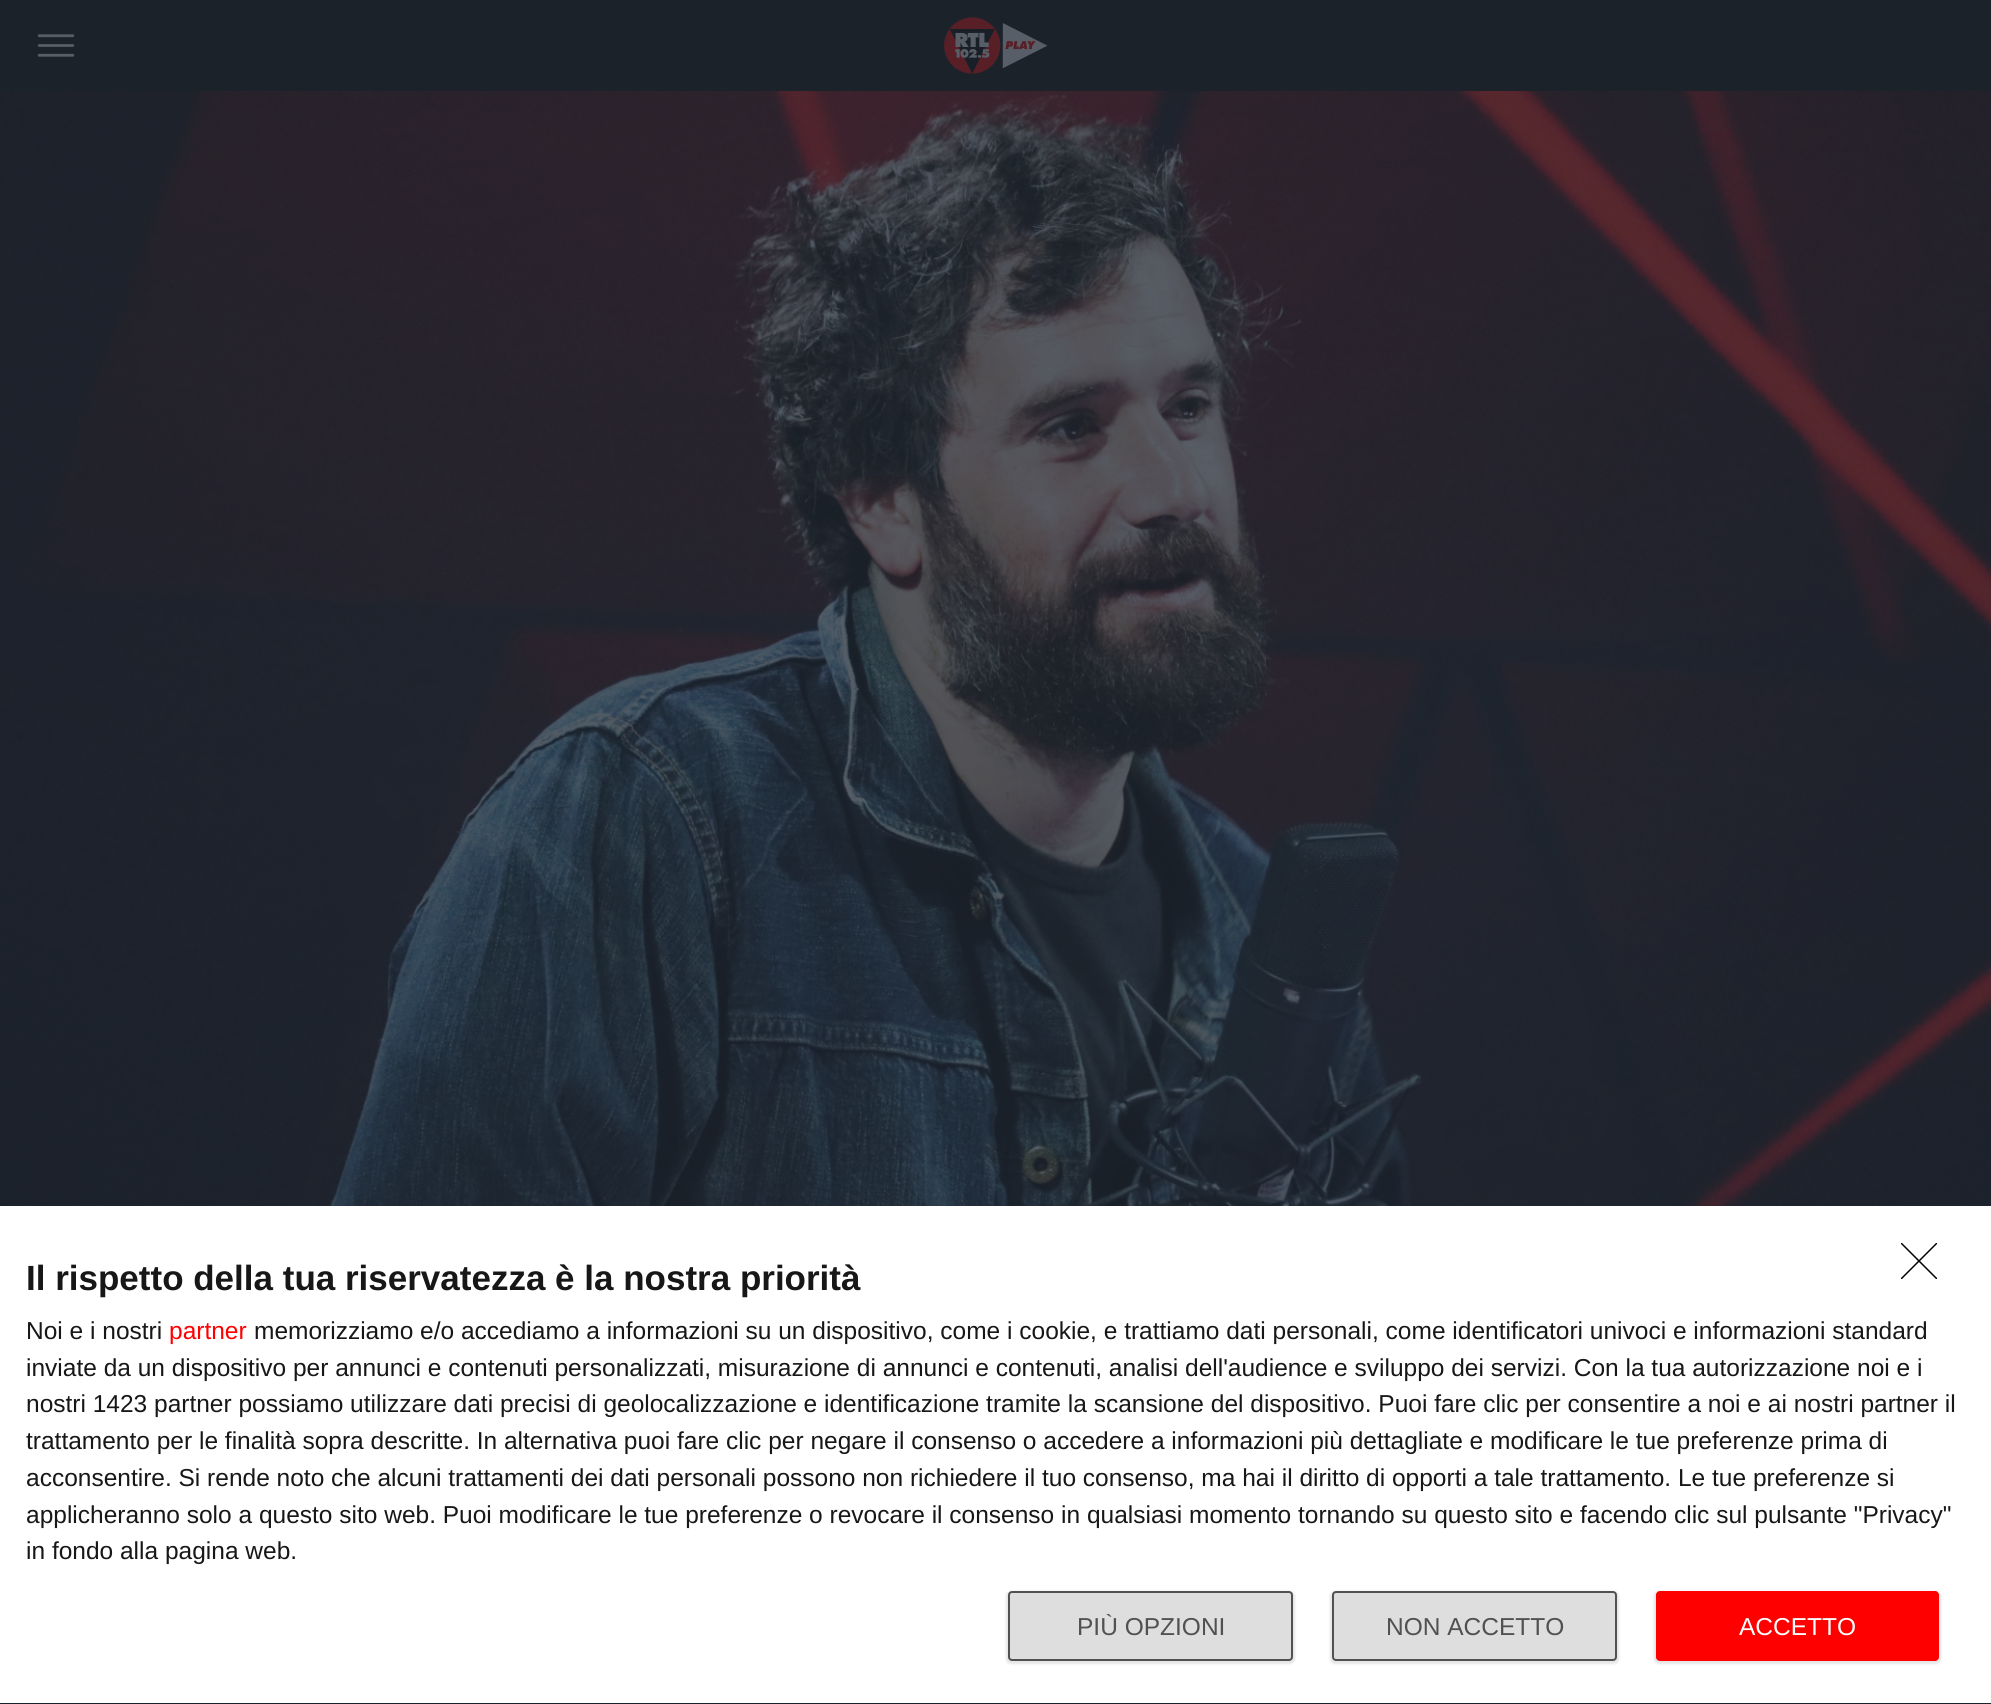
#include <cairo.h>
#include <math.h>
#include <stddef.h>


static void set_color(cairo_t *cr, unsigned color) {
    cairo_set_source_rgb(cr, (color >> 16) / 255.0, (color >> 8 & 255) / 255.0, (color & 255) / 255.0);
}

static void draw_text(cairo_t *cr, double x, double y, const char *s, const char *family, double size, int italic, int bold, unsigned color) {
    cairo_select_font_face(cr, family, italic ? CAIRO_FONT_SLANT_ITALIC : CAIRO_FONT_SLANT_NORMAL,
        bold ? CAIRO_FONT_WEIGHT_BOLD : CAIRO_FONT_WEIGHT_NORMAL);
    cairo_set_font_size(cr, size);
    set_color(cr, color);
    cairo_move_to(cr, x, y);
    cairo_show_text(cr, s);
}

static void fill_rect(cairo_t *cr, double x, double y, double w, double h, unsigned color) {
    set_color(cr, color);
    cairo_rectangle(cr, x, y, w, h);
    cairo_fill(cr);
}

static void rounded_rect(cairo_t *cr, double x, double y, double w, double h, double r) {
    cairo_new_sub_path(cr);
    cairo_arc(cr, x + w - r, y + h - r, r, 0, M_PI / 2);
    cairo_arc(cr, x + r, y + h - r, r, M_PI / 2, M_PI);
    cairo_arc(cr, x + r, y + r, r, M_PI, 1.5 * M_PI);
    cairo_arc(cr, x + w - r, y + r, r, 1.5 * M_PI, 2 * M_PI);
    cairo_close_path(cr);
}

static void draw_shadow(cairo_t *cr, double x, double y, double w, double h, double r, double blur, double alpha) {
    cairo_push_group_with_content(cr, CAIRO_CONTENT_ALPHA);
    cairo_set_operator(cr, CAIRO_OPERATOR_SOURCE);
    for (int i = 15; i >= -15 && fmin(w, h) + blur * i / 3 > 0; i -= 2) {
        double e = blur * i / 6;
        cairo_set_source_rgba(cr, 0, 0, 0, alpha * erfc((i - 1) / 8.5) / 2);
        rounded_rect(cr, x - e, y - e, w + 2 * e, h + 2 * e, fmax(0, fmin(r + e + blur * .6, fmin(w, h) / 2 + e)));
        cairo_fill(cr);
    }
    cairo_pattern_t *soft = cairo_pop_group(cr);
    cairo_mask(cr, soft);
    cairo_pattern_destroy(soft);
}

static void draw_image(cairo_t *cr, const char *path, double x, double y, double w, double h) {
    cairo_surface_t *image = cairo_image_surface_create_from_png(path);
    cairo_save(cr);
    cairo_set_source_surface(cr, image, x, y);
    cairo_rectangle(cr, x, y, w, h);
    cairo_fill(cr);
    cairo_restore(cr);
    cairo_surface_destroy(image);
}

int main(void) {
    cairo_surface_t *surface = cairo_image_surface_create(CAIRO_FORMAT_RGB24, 1991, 1704);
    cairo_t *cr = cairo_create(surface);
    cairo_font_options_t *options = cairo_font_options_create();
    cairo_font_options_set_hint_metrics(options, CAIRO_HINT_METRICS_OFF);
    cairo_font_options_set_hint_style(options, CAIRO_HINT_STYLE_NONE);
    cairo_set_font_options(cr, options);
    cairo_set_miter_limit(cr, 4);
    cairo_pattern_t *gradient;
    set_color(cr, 0xFFFFFF);
    cairo_paint(cr);
    gradient = cairo_pattern_create_linear(996, 0, 996, 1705);
    cairo_pattern_add_color_stop_rgba(gradient, 0, 0.169, 0.122, 0.153, 1);
    cairo_pattern_add_color_stop_rgba(gradient, 1, 0.11, 0.133, 0.165, 1);
    cairo_set_source(cr, gradient);
    cairo_pattern_destroy(gradient);
    cairo_rectangle(cr, 0, 1703, 1991, 1);
    cairo_fill(cr);
    fill_rect(cr, 0, 0, 1991, 91, 0x1C222A);
    draw_image(cr, "assets/img1.png", 37, 34, 38, 23);
    draw_image(cr, "assets/img2.png", 944, 17, 104, 57);
    draw_image(cr, "assets/img3.png", 0, 91, 1991, 1115);
    cairo_save(cr);
    cairo_rectangle(cr, 1901, 1243, 36, 36);
    cairo_clip(cr);
    cairo_new_path(cr);
    cairo_move_to(cr, 1901.5, 1243.5);
    cairo_line_to(cr, 1936.5, 1278.5);
    cairo_move_to(cr, 1936.5, 1243.5);
    cairo_line_to(cr, 1901.5, 1278.5);
    set_color(cr, 0x000000);
    cairo_set_line_width(cr, 1.5);
    cairo_set_line_cap(cr, CAIRO_LINE_CAP_ROUND);
    cairo_set_line_join(cr, CAIRO_LINE_JOIN_ROUND);
    cairo_stroke(cr);
    cairo_restore(cr);
    draw_text(cr, 26, 1290, "Il rispetto della tua riservatezza è la nostra priorità", "Liberation Sans", 35, 0, 1, 0x171717);
    draw_text(cr, 26, 1339, "Noi e i nostri", "Liberation Sans", 24.5, 0, 0, 0x171717);
    draw_text(cr, 169, 1339, "partner", "Liberation Sans", 24.5, 0, 0, 0xFF0000);
    draw_text(cr, 254, 1339, "memorizziamo e/o accediamo a informazioni su un dispositivo, come i cookie, e trattiamo dati personali, come identificatori univoci e informazioni standard", "Liberation Sans", 24.5, 0, 0, 0x171717);
    draw_text(cr, 26, 1376, "inviate da un dispositivo per annunci e contenuti personalizzati, misurazione di annunci e contenuti, analisi dell'audience e sviluppo dei servizi. Con la tua autorizzazione noi e i", "Liberation Sans", 24.5, 0, 0, 0x171717);
    draw_text(cr, 26, 1412, "nostri 1423 partner possiamo utilizzare dati precisi di geolocalizzazione e identificazione tramite la scansione del dispositivo. Puoi fare clic per consentire a noi e ai nostri partner il", "Liberation Sans", 24.5, 0, 0, 0x171717);
    draw_text(cr, 26, 1449, "trattamento per le finalità sopra descritte. In alternativa puoi fare clic per negare il consenso o accedere a informazioni più dettagliate e modificare le tue preferenze prima di", "Liberation Sans", 24.5, 0, 0, 0x171717);
    draw_text(cr, 26, 1486, "acconsentire. Si rende noto che alcuni trattamenti dei dati personali possono non richiedere il tuo consenso, ma hai il diritto di opporti a tale trattamento. Le tue preferenze si", "Liberation Sans", 24.5, 0, 0, 0x171717);
    draw_text(cr, 26, 1523, "applicheranno solo a questo sito web. Puoi modificare le tue preferenze o revocare il consenso in qualsiasi momento tornando su questo sito e facendo clic sul pulsante \"Privacy\"", "Liberation Sans", 24.5, 0, 0, 0x171717);
    draw_text(cr, 26, 1559, "in fondo alla pagina web.", "Liberation Sans", 24.5, 0, 0, 0x171717);
    set_color(cr, 0x000000);
    draw_shadow(cr, 1006, 1591, 289, 73, 5, 1, 0.1);
    set_color(cr, 0xDEDEDE);
    rounded_rect(cr, 1009, 1592, 283, 68, 3);
    cairo_fill_preserve(cr);
    set_color(cr, 0x515151);
    cairo_stroke(cr);
    cairo_save(cr);
    cairo_rectangle(cr, 1076, 1614, 149, 24);
    cairo_clip(cr);
    draw_text(cr, 1077, 1635, "PIÙ OPZIONI", "Liberation Sans", 24.5, 0, 0, 0x515151);
    cairo_restore(cr);
    set_color(cr, 0x000000);
    draw_shadow(cr, 1330, 1591, 289, 73, 5, 1, 0.1);
    set_color(cr, 0xDEDEDE);
    rounded_rect(cr, 1333, 1592, 283, 68, 3);
    cairo_fill_preserve(cr);
    set_color(cr, 0x515151);
    cairo_stroke(cr);
    draw_text(cr, 1386, 1635, "NON ACCETTO", "Liberation Sans", 24.5, 0, 0, 0x515151);
    set_color(cr, 0x000000);
    draw_shadow(cr, 1654, 1591, 287, 73, 5, 1, 0.1);
    set_color(cr, 0xFF0000);
    rounded_rect(cr, 1656, 1591, 283, 70, 4);
    cairo_fill(cr);
    draw_text(cr, 1739, 1635, "ACCETTO", "Liberation Sans", 24.5, 0, 0, 0xFFFFFF);
    cairo_surface_write_to_png(surface, "output.png");
    cairo_font_options_destroy(options);
    cairo_destroy(cr);
    cairo_surface_destroy(surface);
    return 0;
}
